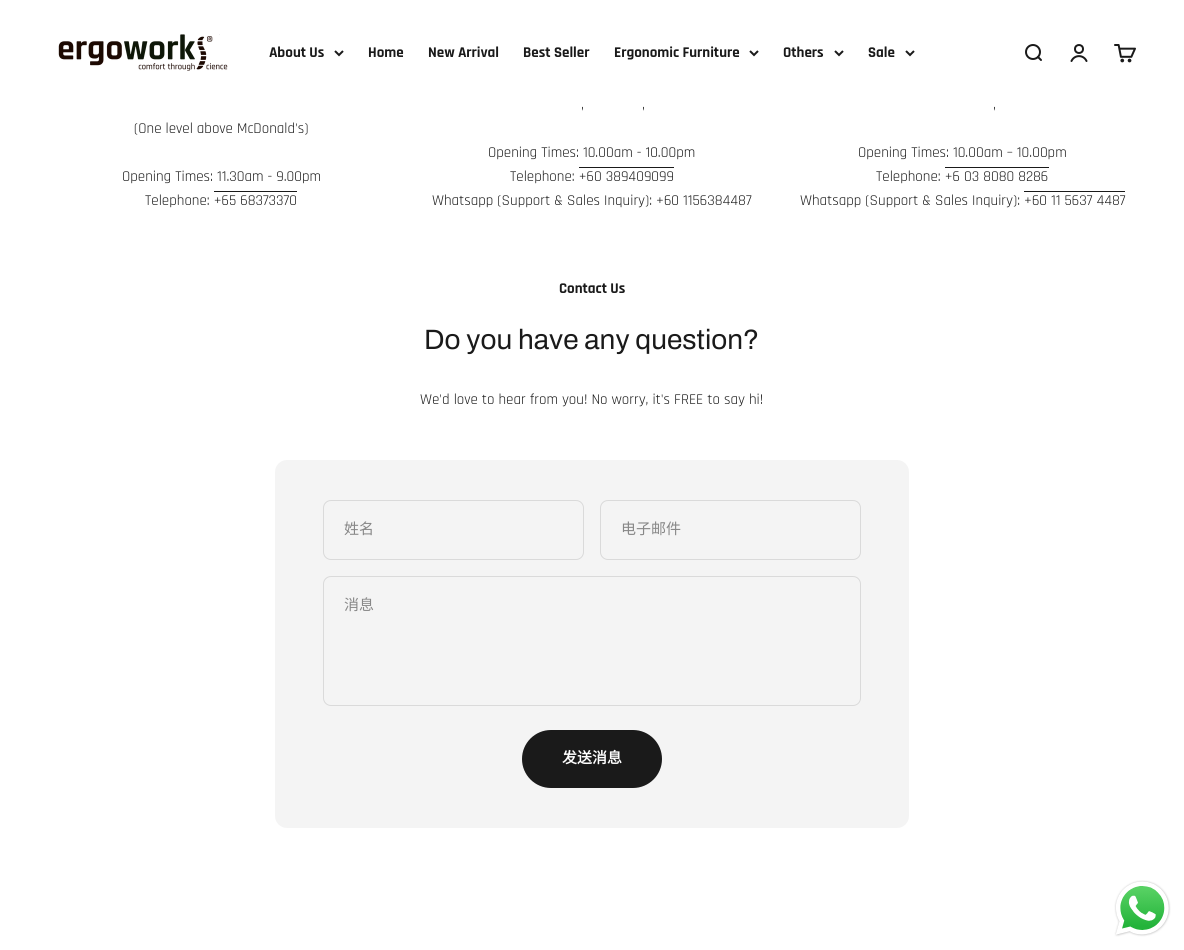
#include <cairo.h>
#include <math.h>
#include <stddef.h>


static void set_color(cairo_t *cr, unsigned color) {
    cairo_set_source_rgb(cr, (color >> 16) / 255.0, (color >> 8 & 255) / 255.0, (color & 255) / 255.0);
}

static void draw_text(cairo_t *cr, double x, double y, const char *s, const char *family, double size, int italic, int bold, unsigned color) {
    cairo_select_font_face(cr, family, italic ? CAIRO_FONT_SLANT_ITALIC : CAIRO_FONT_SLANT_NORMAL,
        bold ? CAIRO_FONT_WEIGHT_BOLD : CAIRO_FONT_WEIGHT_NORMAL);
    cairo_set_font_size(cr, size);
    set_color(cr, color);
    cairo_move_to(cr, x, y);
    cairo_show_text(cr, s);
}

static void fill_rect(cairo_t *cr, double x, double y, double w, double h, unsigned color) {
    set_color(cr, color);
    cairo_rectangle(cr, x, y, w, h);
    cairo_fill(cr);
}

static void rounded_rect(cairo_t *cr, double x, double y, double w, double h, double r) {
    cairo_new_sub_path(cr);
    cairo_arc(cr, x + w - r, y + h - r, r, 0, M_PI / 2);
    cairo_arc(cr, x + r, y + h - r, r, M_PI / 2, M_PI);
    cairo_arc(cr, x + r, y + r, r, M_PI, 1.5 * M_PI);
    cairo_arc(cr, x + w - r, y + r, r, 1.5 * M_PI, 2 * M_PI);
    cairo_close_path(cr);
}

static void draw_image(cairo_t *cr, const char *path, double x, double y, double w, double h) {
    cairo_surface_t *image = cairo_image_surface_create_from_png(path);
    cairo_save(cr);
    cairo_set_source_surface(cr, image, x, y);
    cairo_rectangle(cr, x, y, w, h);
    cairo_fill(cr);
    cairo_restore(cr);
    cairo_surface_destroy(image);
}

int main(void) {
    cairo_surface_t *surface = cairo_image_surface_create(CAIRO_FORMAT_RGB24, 1184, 950);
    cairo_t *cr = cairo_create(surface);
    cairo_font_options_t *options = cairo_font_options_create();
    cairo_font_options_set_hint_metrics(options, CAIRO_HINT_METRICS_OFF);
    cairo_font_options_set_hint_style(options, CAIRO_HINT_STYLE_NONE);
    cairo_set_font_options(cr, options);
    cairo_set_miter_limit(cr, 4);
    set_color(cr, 0xFFFFFF);
    cairo_paint(cr);
    draw_image(cr, "assets/img1.png", 58, 34, 170, 37);
    draw_text(cr, 269, 57, "About Us", "Rajdhani", 15, 0, 1, 0x1A1A1A);
    cairo_new_path(cr);
    cairo_move_to(cr, 335, 51);
    cairo_line_to(cr, 339, 55);
    cairo_line_to(cr, 343, 51);
    cairo_stroke(cr);
    draw_text(cr, 368, 57, "Home", "Rajdhani", 15, 0, 1, 0x1A1A1A);
    draw_text(cr, 428, 57, "New Arrival", "Rajdhani", 15, 0, 1, 0x1A1A1A);
    draw_text(cr, 523, 57, "Best Seller", "Rajdhani", 15, 0, 1, 0x1A1A1A);
    draw_text(cr, 614, 57, "Ergonomic Furniture", "Rajdhani", 15, 0, 1, 0x1A1A1A);
    cairo_new_path(cr);
    cairo_move_to(cr, 750, 51);
    cairo_line_to(cr, 754, 55);
    cairo_line_to(cr, 758, 51);
    cairo_stroke(cr);
    draw_text(cr, 783, 57, "Others", "Rajdhani", 15, 0, 1, 0x1A1A1A);
    cairo_new_path(cr);
    cairo_move_to(cr, 835, 51);
    cairo_line_to(cr, 839, 55);
    cairo_line_to(cr, 843, 51);
    cairo_stroke(cr);
    draw_text(cr, 868, 57, "Sale", "Rajdhani", 15, 0, 1, 0x1A1A1A);
    cairo_new_path(cr);
    cairo_move_to(cr, 906, 51);
    cairo_line_to(cr, 910, 55);
    cairo_line_to(cr, 914, 51);
    cairo_stroke(cr);
    draw_image(cr, "assets/img2.png", 1025, 44, 17, 17);
    cairo_arc(cr, 1079, 49, 4, 0, 2 * M_PI);
    cairo_stroke(cr);
    cairo_new_path(cr);
    cairo_move_to(cr, 1071.5, 61);
    cairo_curve_to(cr, 1074.5, 54.5, 1083.5, 54.5, 1086.5, 61);
    cairo_set_line_cap(cr, CAIRO_LINE_CAP_ROUND);
    cairo_stroke(cr);
    draw_image(cr, "assets/img3.png", 1114, 44, 22, 19);
    draw_text(cr, 134, 133, "(One level above McDonald's)", "Rajdhani", 15, 0, 0, 0x1A1A1A);
    draw_text(cr, 122, 181, "Opening Times: 11.30am - 9.00pm", "Rajdhani", 15, 0, 0, 0x1A1A1A);
    fill_rect(cr, 214, 191, 83, 1, 0x1A1A1A);
    draw_text(cr, 145, 205, "Telephone: +65 68373370", "Rajdhani", 15, 0, 0, 0x1A1A1A);
    draw_text(cr, 581, 109, ",", "Rajdhani", 15, 0, 0, 0x1A1A1A);
    draw_text(cr, 642, 109, ",", "Rajdhani", 15, 0, 0, 0x1A1A1A);
    draw_text(cr, 488, 157, "Opening Times: 10.00am - 10.00pm", "Rajdhani", 15, 0, 0, 0x1A1A1A);
    fill_rect(cr, 579, 167, 95, 1, 0x1A1A1A);
    draw_text(cr, 510, 181, "Telephone: +60 389409099", "Rajdhani", 15, 0, 0, 0x1A1A1A);
    draw_text(cr, 432, 205, "Whatsapp (Support & Sales Inquiry): +60 1156384487", "Rajdhani", 15, 0, 0, 0x1A1A1A);
    draw_text(cr, 993, 109, ",", "Rajdhani", 15, 0, 0, 0x1A1A1A);
    draw_text(cr, 858, 157, "Opening Times: 10.00am – 10.00pm", "Rajdhani", 15, 0, 0, 0x1A1A1A);
    fill_rect(cr, 945, 167, 104, 1, 0x1A1A1A);
    draw_text(cr, 876, 181, "Telephone: +6 03 8080 8286", "Rajdhani", 15, 0, 0, 0x1A1A1A);
    fill_rect(cr, 1024, 191, 101, 1, 0x1A1A1A);
    draw_text(cr, 800, 205, "Whatsapp (Support & Sales Inquiry): +60 11 5637 4487", "Rajdhani", 15, 0, 0, 0x1A1A1A);
    draw_text(cr, 559, 293, "Contact Us", "Rajdhani", 15, 0, 1, 0x1A1A1A);
    draw_text(cr, 424, 349, "Do you have any question?", "Archivo", 28, 0, 0, 0x1A1A1A);
    draw_text(cr, 420, 404, "We'd love to hear from you! No worry, it's FREE to say hi!", "Rajdhani", 15, 0, 0, 0x1A1A1A);
    set_color(cr, 0xF4F4F4);
    rounded_rect(cr, 275, 460, 634, 368, 12);
    cairo_fill(cr);
    rounded_rect(cr, 323.5, 500.5, 260, 59, 7.5);
    set_color(cr, 0xDADADA);
    cairo_set_line_width(cr, 1);
    cairo_set_line_cap(cr, CAIRO_LINE_CAP_BUTT);
    cairo_stroke(cr);
    draw_text(cr, 344, 534, "姓名", "Noto Sans CJK SC", 15, 0, 0, 0x878787);
    rounded_rect(cr, 600.5, 500.5, 260, 59, 7.5);
    set_color(cr, 0xDADADA);
    cairo_stroke(cr);
    draw_text(cr, 621, 534, "电子邮件", "Noto Sans CJK SC", 15, 0, 0, 0x878787);
    rounded_rect(cr, 323.5, 576.5, 537, 129, 7.5);
    set_color(cr, 0xDADADA);
    cairo_stroke(cr);
    draw_text(cr, 344, 610, "消息", "Noto Sans CJK SC", 15, 0, 0, 0x878787);
    set_color(cr, 0x1A1A1A);
    rounded_rect(cr, 522, 730, 140, 58, 29);
    cairo_fill(cr);
    draw_text(cr, 562, 763, "发送消息", "Noto Sans CJK SC", 15, 0, 1, 0xFFFFFF);
    draw_image(cr, "assets/img4.png", 1114, 880, 57, 57);
    cairo_surface_write_to_png(surface, "output.png");
    cairo_font_options_destroy(options);
    cairo_destroy(cr);
    cairo_surface_destroy(surface);
    return 0;
}
